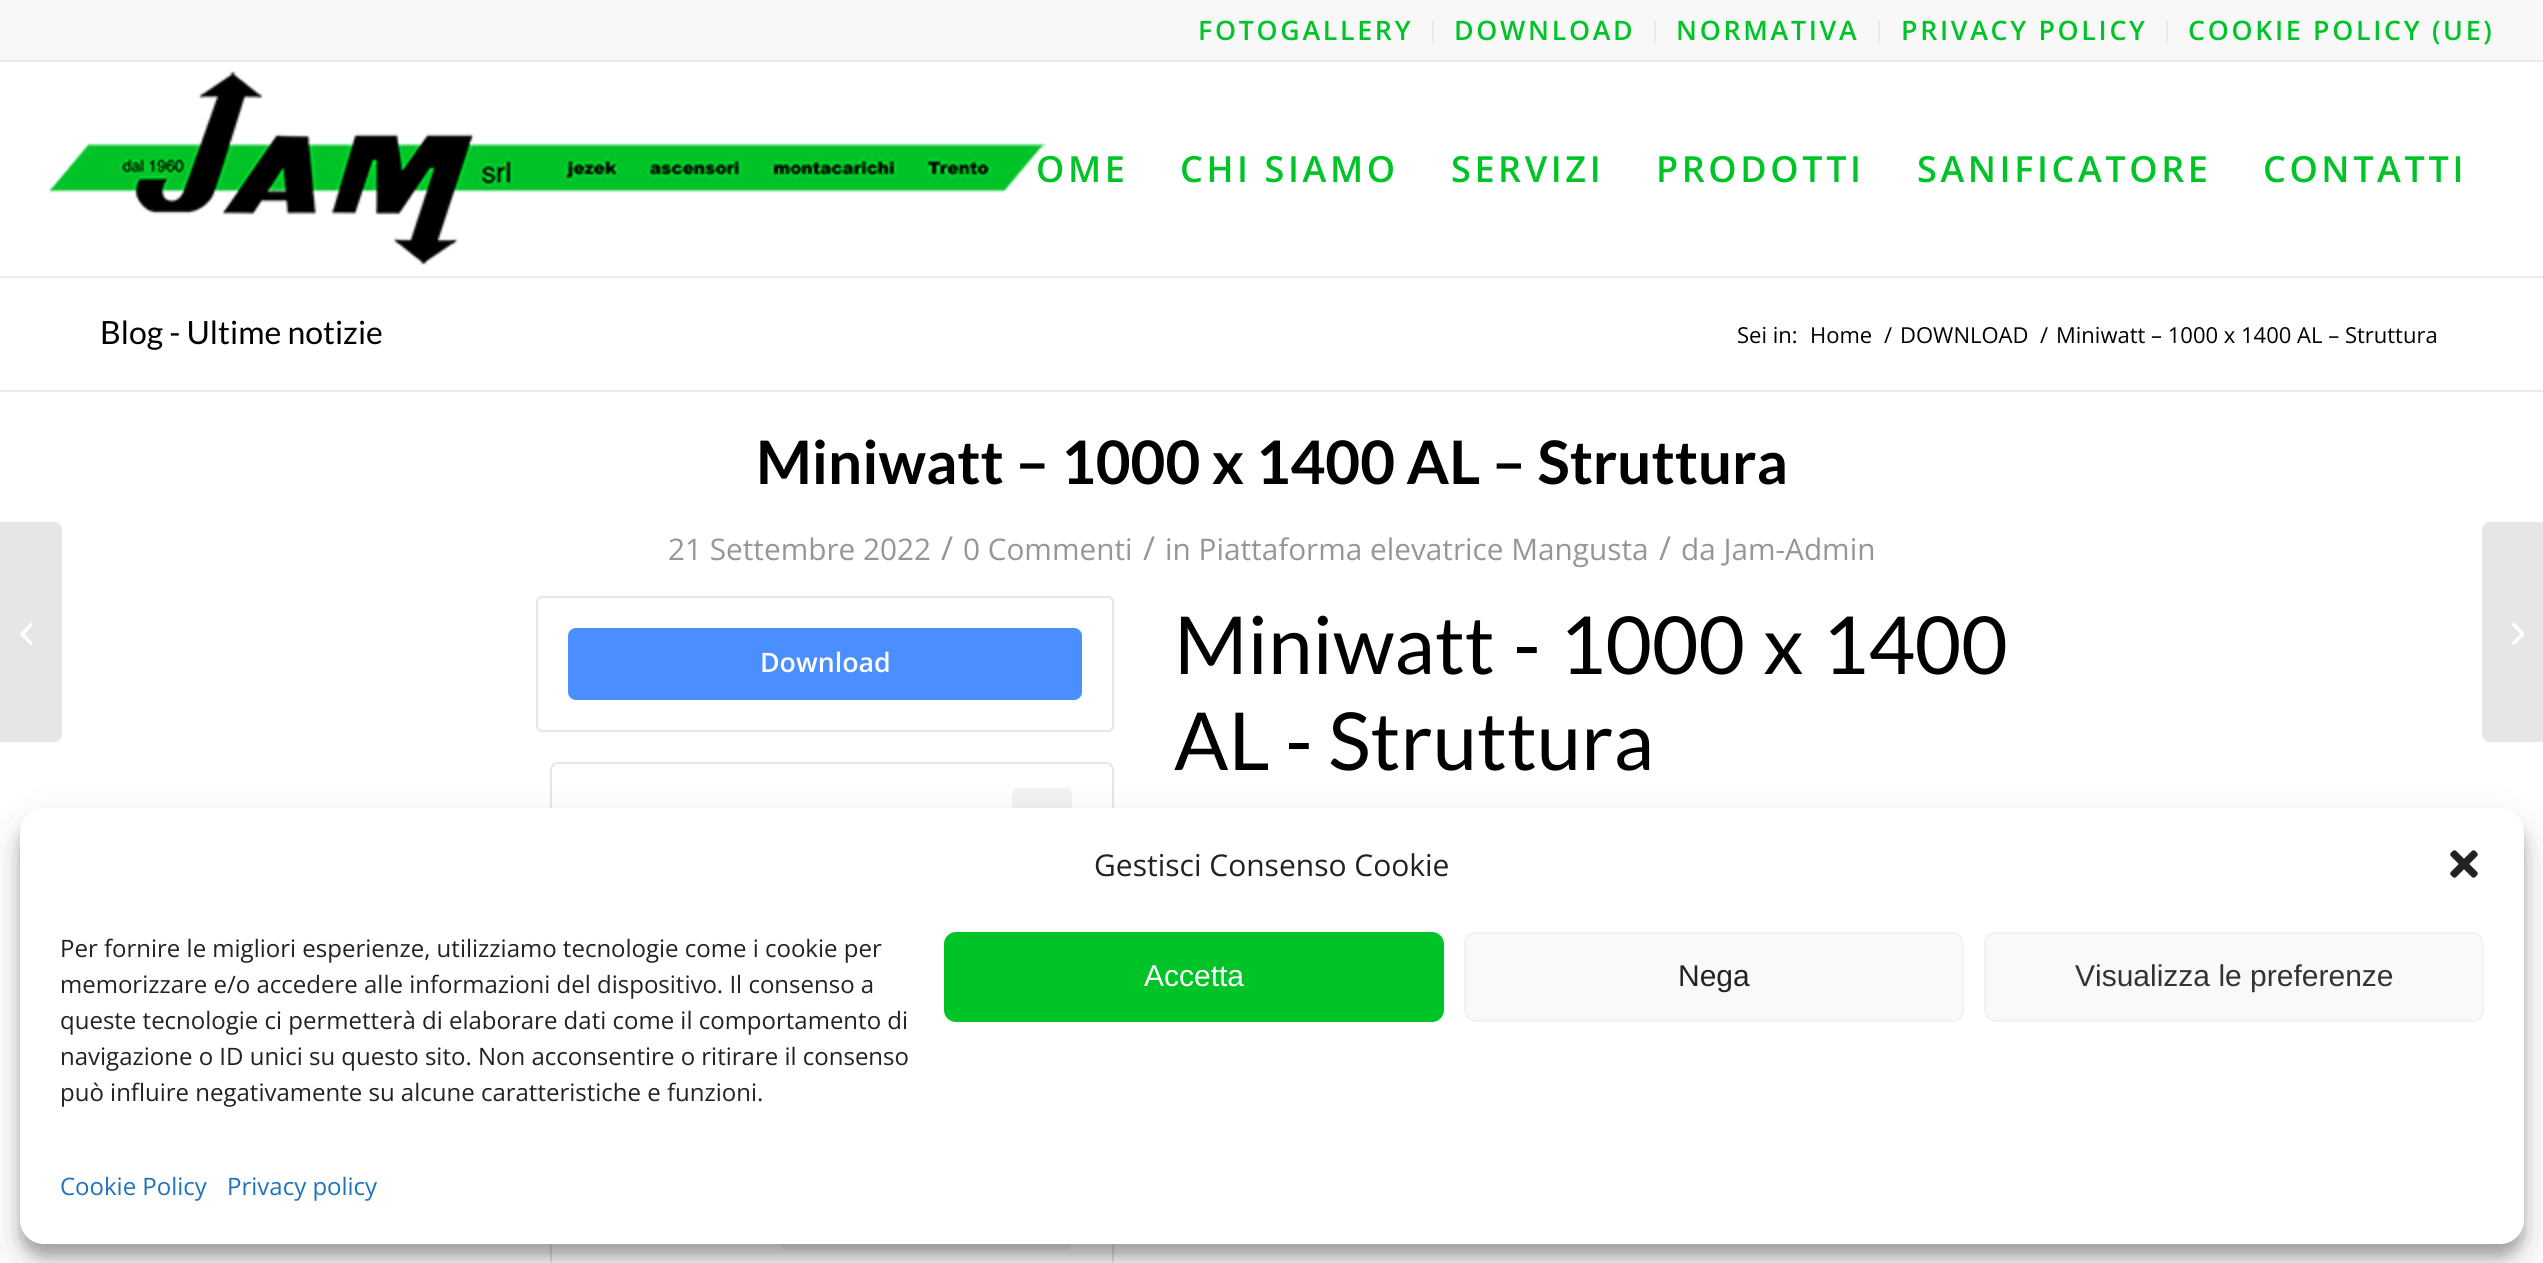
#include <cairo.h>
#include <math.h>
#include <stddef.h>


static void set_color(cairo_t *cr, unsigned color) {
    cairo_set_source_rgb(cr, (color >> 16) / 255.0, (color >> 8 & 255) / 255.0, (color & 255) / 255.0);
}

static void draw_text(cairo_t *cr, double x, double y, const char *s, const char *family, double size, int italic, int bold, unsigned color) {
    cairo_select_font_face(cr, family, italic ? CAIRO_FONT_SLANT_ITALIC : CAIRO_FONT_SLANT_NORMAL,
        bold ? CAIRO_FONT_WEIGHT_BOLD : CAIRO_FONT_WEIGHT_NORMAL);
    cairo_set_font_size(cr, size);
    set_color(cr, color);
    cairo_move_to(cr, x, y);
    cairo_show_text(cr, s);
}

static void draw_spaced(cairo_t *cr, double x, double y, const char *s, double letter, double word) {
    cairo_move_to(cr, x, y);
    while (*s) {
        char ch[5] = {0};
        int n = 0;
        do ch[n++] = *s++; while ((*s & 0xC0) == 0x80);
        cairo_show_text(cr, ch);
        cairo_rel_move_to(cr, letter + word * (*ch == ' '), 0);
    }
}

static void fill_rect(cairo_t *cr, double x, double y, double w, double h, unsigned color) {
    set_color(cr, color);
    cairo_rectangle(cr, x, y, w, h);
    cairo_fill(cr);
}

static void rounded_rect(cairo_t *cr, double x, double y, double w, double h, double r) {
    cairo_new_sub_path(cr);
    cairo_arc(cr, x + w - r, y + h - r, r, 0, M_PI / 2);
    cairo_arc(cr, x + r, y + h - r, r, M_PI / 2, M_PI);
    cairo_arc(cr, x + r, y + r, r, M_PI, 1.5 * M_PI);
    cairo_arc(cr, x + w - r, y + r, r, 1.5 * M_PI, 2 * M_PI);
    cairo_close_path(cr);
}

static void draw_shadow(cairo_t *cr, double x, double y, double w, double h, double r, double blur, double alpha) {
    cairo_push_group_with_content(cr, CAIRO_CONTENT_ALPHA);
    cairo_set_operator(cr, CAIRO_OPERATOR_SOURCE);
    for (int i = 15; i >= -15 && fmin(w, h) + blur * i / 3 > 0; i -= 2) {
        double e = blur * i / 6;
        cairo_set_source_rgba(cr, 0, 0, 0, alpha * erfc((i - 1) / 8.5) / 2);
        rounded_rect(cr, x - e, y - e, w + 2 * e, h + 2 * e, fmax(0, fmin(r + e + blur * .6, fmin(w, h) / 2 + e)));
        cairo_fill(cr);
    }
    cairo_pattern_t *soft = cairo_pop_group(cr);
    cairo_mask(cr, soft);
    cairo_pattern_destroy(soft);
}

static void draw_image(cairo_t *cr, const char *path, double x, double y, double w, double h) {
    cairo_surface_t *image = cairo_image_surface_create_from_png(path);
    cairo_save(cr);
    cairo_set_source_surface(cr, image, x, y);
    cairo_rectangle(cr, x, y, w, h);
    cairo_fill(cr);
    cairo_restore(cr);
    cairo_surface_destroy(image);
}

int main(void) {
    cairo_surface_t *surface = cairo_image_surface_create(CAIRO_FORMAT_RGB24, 2543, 1263);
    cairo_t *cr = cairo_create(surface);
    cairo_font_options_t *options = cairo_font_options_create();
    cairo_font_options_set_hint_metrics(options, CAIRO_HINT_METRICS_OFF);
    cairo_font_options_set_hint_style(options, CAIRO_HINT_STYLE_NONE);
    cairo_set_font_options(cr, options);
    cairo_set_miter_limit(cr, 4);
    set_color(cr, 0xFFFFFF);
    cairo_paint(cr);
    fill_rect(cr, 0, 0, 2543, 60, 0xF8F8F8);
    fill_rect(cr, 0, 60, 2543, 2, 0xEBEBEB);
    fill_rect(cr, 1432, 20, 2, 22, 0xEBEBEB);
    cairo_select_font_face(cr, "Open Sans SemiBold", CAIRO_FONT_SLANT_NORMAL, CAIRO_FONT_WEIGHT_NORMAL);
    cairo_set_font_size(cr, 26.75);
    set_color(cr, 0x00C327);
    draw_spaced(cr, 1198, 40, "FOTOGALLERY", 2.7, 0);
    fill_rect(cr, 1654, 20, 2, 22, 0xEBEBEB);
    set_color(cr, 0x00C327);
    draw_spaced(cr, 1454, 40, "DOWNLOAD", 2.7, 0);
    fill_rect(cr, 1878, 20, 2, 22, 0xEBEBEB);
    set_color(cr, 0x00C327);
    draw_spaced(cr, 1676, 40, "NORMATIVA", 2.7, 0);
    fill_rect(cr, 2166, 20, 2, 22, 0xEBEBEB);
    set_color(cr, 0x00C327);
    draw_spaced(cr, 1901, 40, "PRIVACY POLICY", 2.7, 0);
    draw_spaced(cr, 2188, 40, "COOKIE POLICY (UE)", 2.7, 0);
    fill_rect(cr, 0, 276, 2543, 2, 0xEBEBEB);
    draw_image(cr, "assets/img1.png", 50, 71, 997, 194);
    cairo_set_font_size(cr, 36);
    set_color(cr, 0x00C327);
    draw_spaced(cr, 1036, 182, "OME", 3.6, 0);
    draw_spaced(cr, 1180, 182, "CHI SIAMO", 3.6, 0);
    draw_spaced(cr, 1451, 182, "SERVIZI", 3.6, 0);
    draw_spaced(cr, 1656, 182, "PRODOTTI", 3.6, 0);
    draw_spaced(cr, 1917, 182, "SANIFICATORE", 3.6, 0);
    draw_spaced(cr, 2263, 182, "CONTATTI", 3.6, 0);
    set_color(cr, 0xE6E6E6);
    cairo_new_path(cr);
    cairo_move_to(cr, 0, 522);
    cairo_line_to(cr, 54, 522);
    cairo_curve_to(cr, 58.5, 522, 62, 525.5, 62, 530);
    cairo_line_to(cr, 62, 734);
    cairo_curve_to(cr, 62, 738.5, 58.5, 742, 54, 742);
    cairo_line_to(cr, 0, 742);
    cairo_close_path(cr);
    cairo_fill(cr);
    draw_image(cr, "assets/img2.png", 20, 623, 12, 22);
    draw_text(cr, 100, 344, "Blog - Ultime notizie", "Lato", 32, 0, 0, 0x000000);
    draw_text(cr, 1737, 343, "Sei in:", "Open Sans", 22, 0, 0, 0x000000);
    draw_text(cr, 1810, 343, "Home", "Open Sans", 22, 0, 0, 0x000000);
    draw_text(cr, 1884, 343, "/", "Open Sans", 22, 0, 0, 0x000000);
    draw_text(cr, 1900, 343, "DOWNLOAD", "Open Sans", 22, 0, 0, 0x000000);
    draw_text(cr, 2040, 343, "/", "Open Sans", 22, 0, 0, 0x000000);
    draw_text(cr, 2056, 343, "Miniwatt – 1000 x 1400 AL – Struttura", "Open Sans", 22, 0, 0, 0x000000);
    fill_rect(cr, 0, 390, 2543, 2, 0xEBEBEB);
    draw_text(cr, 756, 484, "Miniwatt – 1000 x 1400 AL – Struttura", "Lato", 60, 0, 1, 0x000000);
    draw_text(cr, 668, 560, "21 Settembre 2022", "Open Sans", 29.75, 0, 0, 0x969696);
    draw_text(cr, 941, 560, "/", "Open Sans", 33, 0, 0, 0x969696);
    draw_text(cr, 963, 560, "0 Commenti", "Open Sans", 29.75, 0, 0, 0x969696);
    draw_text(cr, 1143, 560, "/", "Open Sans", 33, 0, 0, 0x969696);
    draw_text(cr, 1165, 560, "in Piattaforma elevatrice Mangusta", "Open Sans", 29.75, 0, 0, 0x969696);
    draw_text(cr, 1659, 560, "/", "Open Sans", 33, 0, 0, 0x969696);
    draw_text(cr, 1681, 560, "da Jam-Admin", "Open Sans", 29.75, 0, 0, 0x969696);
    rounded_rect(cr, 537, 597, 576, 134, 5);
    set_color(cr, 0xE5E5E5);
    cairo_stroke(cr);
    set_color(cr, 0x4A8EFF);
    rounded_rect(cr, 568, 628, 514, 72, 8);
    cairo_fill(cr);
    draw_text(cr, 760, 672, "Download", "Open Sans SemiBold", 26.75, 0, 0, 0xFFFFFF);
    cairo_new_path(cr);
    cairo_move_to(cr, 558, 763);
    cairo_line_to(cr, 1106, 763);
    cairo_curve_to(cr, 1110, 763, 1113, 766, 1113, 770);
    cairo_line_to(cr, 1113, 875);
    cairo_line_to(cr, 551, 875);
    cairo_line_to(cr, 551, 770);
    cairo_curve_to(cr, 551, 766, 554, 763, 558, 763);
    cairo_close_path(cr);
    set_color(cr, 0xE5E5E5);
    cairo_stroke(cr);
    set_color(cr, 0xF2F2F2);
    rounded_rect(cr, 1012, 788, 60, 62, 6);
    cairo_fill(cr);
    cairo_rectangle(cr, 551, 1101, 562, 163);
    set_color(cr, 0xE5E5E5);
    cairo_stroke(cr);
    set_color(cr, 0xF2F2F2);
    rounded_rect(cr, 780, 1126, 292, 124, 6);
    cairo_fill(cr);
    cairo_select_font_face(cr, "Lato", CAIRO_FONT_SLANT_NORMAL, CAIRO_FONT_WEIGHT_NORMAL);
    cairo_set_font_size(cr, 80);
    set_color(cr, 0x000000);
    draw_spaced(cr, 1174, 674, "Miniwatt - 1000 x 1400", 0, 3);
    draw_text(cr, 1174, 770, "AL - Struttura", "Lato", 80, 0, 0, 0x000000);
    set_color(cr, 0xE6E6E6);
    cairo_new_path(cr);
    cairo_move_to(cr, 2490, 522);
    cairo_line_to(cr, 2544, 522);
    cairo_line_to(cr, 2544, 742);
    cairo_line_to(cr, 2490, 742);
    cairo_curve_to(cr, 2485.5, 742, 2482, 738.5, 2482, 734);
    cairo_line_to(cr, 2482, 530);
    cairo_curve_to(cr, 2482, 525.5, 2485.5, 522, 2490, 522);
    cairo_close_path(cr);
    cairo_fill(cr);
    draw_image(cr, "assets/img3.png", 2512, 623, 12, 22);
    set_color(cr, 0x000000);
    draw_shadow(cr, 20, 820, 2504, 436, 24, 6, 0.23);
    draw_shadow(cr, 20, 828, 2504, 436, 24, 20, 0.19);
    set_color(cr, 0xFFFFFF);
    rounded_rect(cr, 20, 808, 2504, 436, 24);
    cairo_fill(cr);
    draw_text(cr, 1094, 876, "Gestisci Consenso Cookie", "Open Sans", 30, 0, 0, 0x222222);
    draw_image(cr, "assets/img4.png", 2450, 850, 28, 28);
    draw_text(cr, 60, 957, "Per fornire le migliori esperienze, utilizziamo tecnologie come i cookie per", "Open Sans", 24, 0, 0, 0x222222);
    draw_text(cr, 60, 993, "memorizzare e/o accedere alle informazioni del dispositivo. Il consenso a", "Open Sans", 24, 0, 0, 0x222222);
    draw_text(cr, 60, 1029, "queste tecnologie ci permetterà di elaborare dati come il comportamento di", "Open Sans", 24, 0, 0, 0x222222);
    draw_text(cr, 60, 1065, "navigazione o ID unici su questo sito. Non acconsentire o ritirare il consenso", "Open Sans", 24, 0, 0, 0x222222);
    draw_text(cr, 60, 1101, "può influire negativamente su alcune caratteristiche e funzioni.", "Open Sans", 24, 0, 0, 0x222222);
    set_color(cr, 0x00C327);
    rounded_rect(cr, 945, 933, 498, 88, 11);
    cairo_fill_preserve(cr);
    cairo_stroke(cr);
    draw_text(cr, 1144, 986, "Accetta", "Liberation Sans", 30, 0, 0, 0xFFFFFF);
    set_color(cr, 0xF9F9F9);
    rounded_rect(cr, 1465, 933, 498, 88, 11);
    cairo_fill_preserve(cr);
    set_color(cr, 0xF2F2F2);
    cairo_stroke(cr);
    draw_text(cr, 1678, 986, "Nega", "Liberation Sans", 30, 0, 0, 0x222222);
    set_color(cr, 0xF9F9F9);
    rounded_rect(cr, 1985, 933, 498, 88, 11);
    cairo_fill_preserve(cr);
    set_color(cr, 0xF2F2F2);
    cairo_stroke(cr);
    draw_text(cr, 2075, 986, "Visualizza le preferenze", "Liberation Sans", 30, 0, 0, 0x333333);
    draw_text(cr, 60, 1195, "Cookie Policy", "Open Sans", 24, 0, 0, 0x1E73BE);
    draw_text(cr, 227, 1195, "Privacy policy", "Open Sans", 24, 0, 0, 0x1E73BE);
    cairo_surface_write_to_png(surface, "output.png");
    cairo_font_options_destroy(options);
    cairo_destroy(cr);
    cairo_surface_destroy(surface);
    return 0;
}
